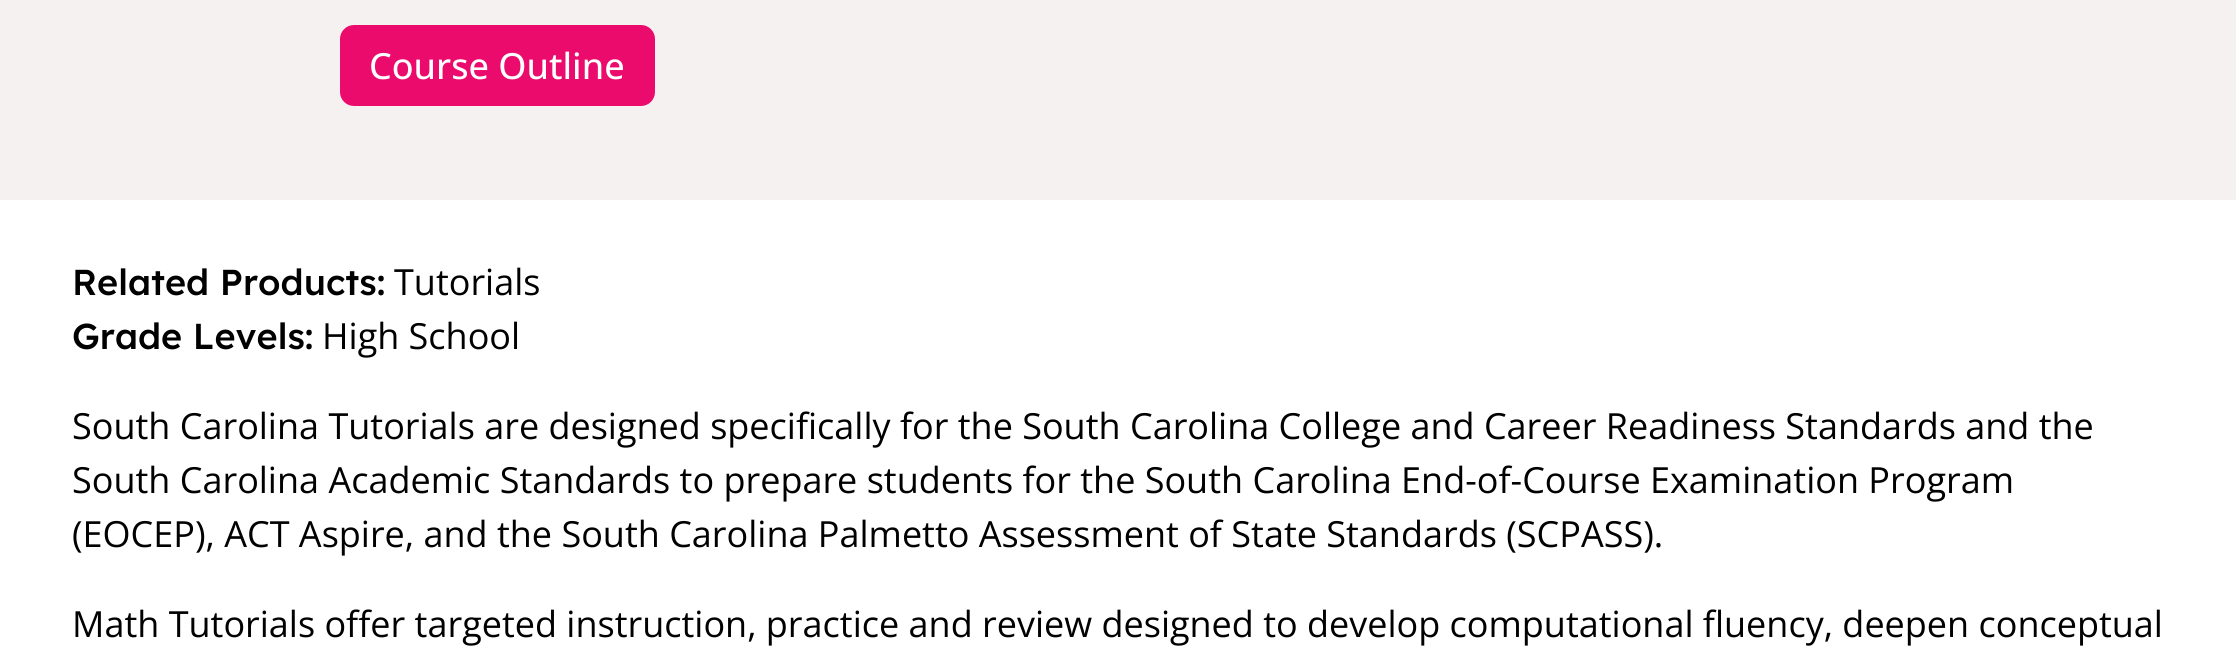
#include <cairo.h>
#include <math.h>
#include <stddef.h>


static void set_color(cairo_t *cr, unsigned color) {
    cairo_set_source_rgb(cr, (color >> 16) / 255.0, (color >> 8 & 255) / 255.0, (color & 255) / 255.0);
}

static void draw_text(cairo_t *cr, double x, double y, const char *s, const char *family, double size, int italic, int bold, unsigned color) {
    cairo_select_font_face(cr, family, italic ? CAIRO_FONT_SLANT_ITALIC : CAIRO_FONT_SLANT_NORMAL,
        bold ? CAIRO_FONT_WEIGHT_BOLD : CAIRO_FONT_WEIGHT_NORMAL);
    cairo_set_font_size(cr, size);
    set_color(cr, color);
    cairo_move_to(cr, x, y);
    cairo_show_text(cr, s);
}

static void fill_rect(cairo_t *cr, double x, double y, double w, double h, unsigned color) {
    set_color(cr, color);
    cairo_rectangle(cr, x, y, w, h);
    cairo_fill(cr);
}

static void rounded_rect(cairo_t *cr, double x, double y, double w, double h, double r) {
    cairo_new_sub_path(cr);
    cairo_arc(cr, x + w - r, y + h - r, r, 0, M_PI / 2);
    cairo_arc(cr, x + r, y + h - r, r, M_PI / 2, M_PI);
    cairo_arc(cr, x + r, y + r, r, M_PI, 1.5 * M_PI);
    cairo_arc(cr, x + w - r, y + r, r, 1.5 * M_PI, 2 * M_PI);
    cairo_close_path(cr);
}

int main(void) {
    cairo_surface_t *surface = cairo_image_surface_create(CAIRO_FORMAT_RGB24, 2236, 668);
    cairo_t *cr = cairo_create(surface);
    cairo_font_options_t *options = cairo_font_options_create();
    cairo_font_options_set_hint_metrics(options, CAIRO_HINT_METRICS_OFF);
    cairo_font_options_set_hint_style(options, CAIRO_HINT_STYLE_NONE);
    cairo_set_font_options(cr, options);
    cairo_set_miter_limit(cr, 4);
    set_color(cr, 0xFFFFFF);
    cairo_paint(cr);
    fill_rect(cr, 0, 0, 2236, 200, 0xF4F1F0);
    set_color(cr, 0xEB0B6C);
    rounded_rect(cr, 341, 26, 313, 79, 13);
    cairo_fill_preserve(cr);
    cairo_stroke(cr);
    draw_text(cr, 369, 79, "Course Outline", "Open Sans Medium", 36, 0, 0, 0xFFFFFF);
    draw_text(cr, 72, 295, "Related Products:", "Lexend Medium", 36, 0, 0, 0x000000);
    draw_text(cr, 394, 295, "Tutorials", "Open Sans", 36, 0, 0, 0x000000);
    draw_text(cr, 72, 349, "Grade Levels:", "Lexend Medium", 36, 0, 0, 0x000000);
    draw_text(cr, 322, 349, "High School", "Open Sans", 36, 0, 0, 0x000000);
    draw_text(cr, 72, 439, "South Carolina Tutorials are designed specifically for the South Carolina College and Career Readiness Standards and the", "Open Sans", 36, 0, 0, 0x000000);
    draw_text(cr, 72, 493, "South Carolina Academic Standards to prepare students for the South Carolina End-of-Course Examination Program", "Open Sans", 36, 0, 0, 0x000000);
    draw_text(cr, 72, 547, "(EOCEP), ACT Aspire, and the South Carolina Palmetto Assessment of State Standards (SCPASS).", "Open Sans", 36, 0, 0, 0x000000);
    draw_text(cr, 72, 637, "Math Tutorials offer targeted instruction, practice and review designed to develop computational fluency, deepen conceptual", "Open Sans", 36, 0, 0, 0x000000);
    cairo_surface_write_to_png(surface, "output.png");
    cairo_font_options_destroy(options);
    cairo_destroy(cr);
    cairo_surface_destroy(surface);
    return 0;
}
